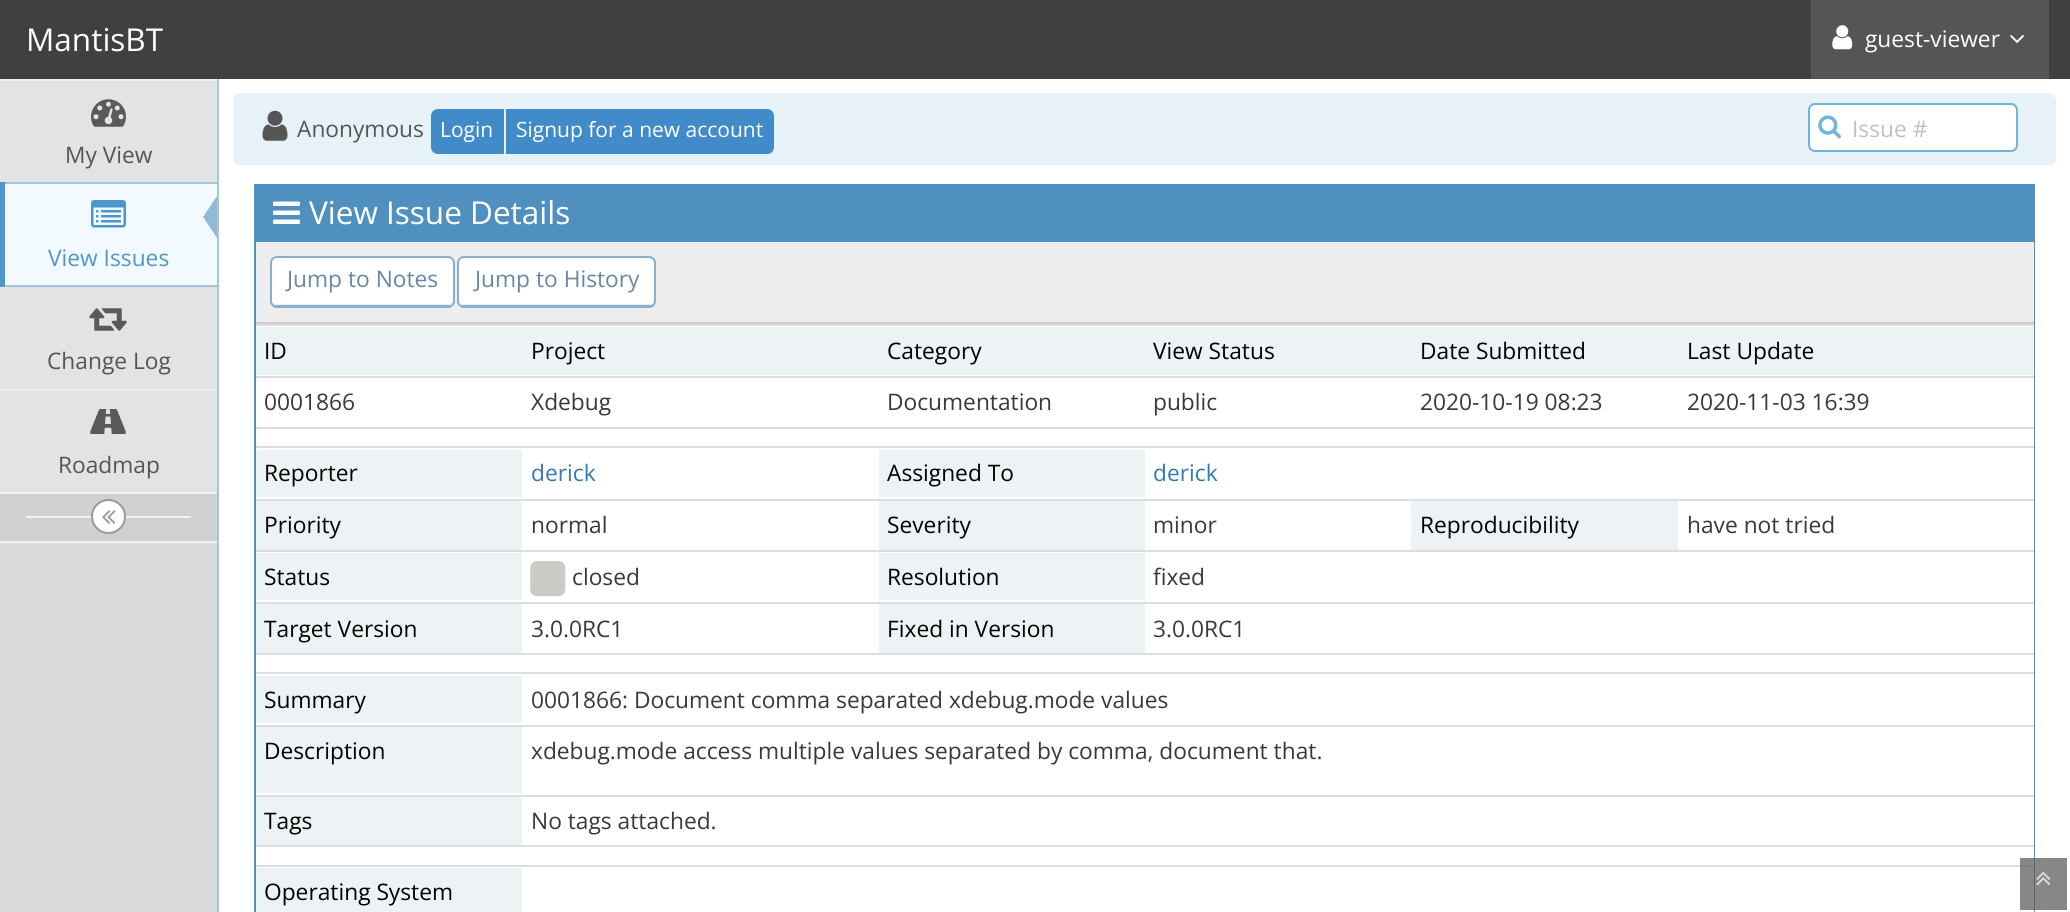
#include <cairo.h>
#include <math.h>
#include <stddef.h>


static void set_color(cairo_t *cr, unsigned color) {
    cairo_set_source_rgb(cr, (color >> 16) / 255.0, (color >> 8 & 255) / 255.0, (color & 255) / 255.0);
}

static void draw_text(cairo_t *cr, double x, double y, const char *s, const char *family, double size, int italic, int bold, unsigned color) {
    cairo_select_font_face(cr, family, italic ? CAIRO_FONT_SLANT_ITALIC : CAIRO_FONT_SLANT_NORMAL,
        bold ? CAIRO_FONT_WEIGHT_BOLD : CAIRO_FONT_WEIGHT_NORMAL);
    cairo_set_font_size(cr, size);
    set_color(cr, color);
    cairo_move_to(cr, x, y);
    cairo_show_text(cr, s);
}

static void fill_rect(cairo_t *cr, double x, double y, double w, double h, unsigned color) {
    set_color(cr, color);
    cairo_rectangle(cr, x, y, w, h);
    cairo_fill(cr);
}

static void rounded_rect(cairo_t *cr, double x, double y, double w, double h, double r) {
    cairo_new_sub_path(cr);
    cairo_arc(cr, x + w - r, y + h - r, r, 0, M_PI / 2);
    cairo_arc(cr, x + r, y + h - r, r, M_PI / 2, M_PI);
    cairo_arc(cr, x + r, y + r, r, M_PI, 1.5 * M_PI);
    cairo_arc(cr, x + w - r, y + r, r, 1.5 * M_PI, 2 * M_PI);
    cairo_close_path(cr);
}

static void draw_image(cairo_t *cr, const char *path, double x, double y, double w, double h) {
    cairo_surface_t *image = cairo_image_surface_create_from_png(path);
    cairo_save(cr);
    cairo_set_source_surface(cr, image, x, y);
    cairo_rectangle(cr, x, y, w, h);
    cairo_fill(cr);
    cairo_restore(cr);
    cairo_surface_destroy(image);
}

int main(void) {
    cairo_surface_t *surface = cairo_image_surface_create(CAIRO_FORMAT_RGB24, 2070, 912);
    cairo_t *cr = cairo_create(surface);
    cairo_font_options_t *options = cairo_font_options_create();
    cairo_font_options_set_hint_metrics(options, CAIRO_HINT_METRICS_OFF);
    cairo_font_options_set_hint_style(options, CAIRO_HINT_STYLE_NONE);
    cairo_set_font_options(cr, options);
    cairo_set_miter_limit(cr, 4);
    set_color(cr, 0xFFFFFF);
    cairo_paint(cr);
    fill_rect(cr, 0, 0, 2070, 79, 0x404040);
    draw_text(cr, 26, 51, "MantisBT", "Open Sans", 31.5, 0, 0, 0xFFFFFF);
    fill_rect(cr, 1811, 0, 238, 79, 0x555555);
    draw_image(cr, "assets/img1.png", 1832, 25, 21, 25);
    draw_text(cr, 1865, 47, "guest-viewer", "Open Sans", 22.75, 0, 0, 0xFFFFFF);
    draw_image(cr, "assets/img2.png", 2010, 35, 14, 8);
    fill_rect(cr, 0, 543, 217, 369, 0xDBDBDB);
    fill_rect(cr, 217, 79, 2, 833, 0xA4C6DD);
    fill_rect(cr, 0, 79, 217, 2, 0xF2F2F2);
    fill_rect(cr, 0, 81, 217, 101, 0xE3E3E3);
    draw_image(cr, "assets/img3.png", 91, 99, 35, 28);
    draw_text(cr, 65, 163, "My View", "Open Sans", 22.75, 0, 0, 0x555555);
    fill_rect(cr, 0, 182, 217, 2, 0xA4C6DD);
    fill_rect(cr, 0, 285, 217, 2, 0xA4C6DD);
    fill_rect(cr, 0, 182, 5, 105, 0x4D96CB);
    fill_rect(cr, 5, 184, 212, 101, 0xF3FAFF);
    draw_image(cr, "assets/img4.png", 91, 200, 35, 28);
    set_color(cr, 0x91BAD6);
    cairo_new_path(cr);
    cairo_move_to(cr, 217, 196);
    cairo_line_to(cr, 217, 238);
    cairo_line_to(cr, 203, 217);
    cairo_close_path(cr);
    cairo_fill(cr);
    draw_text(cr, 48, 266, "View Issues", "Open Sans", 22.75, 0, 0, 0x4D96CB);
    fill_rect(cr, 0, 287, 217, 102, 0xE3E3E3);
    draw_image(cr, "assets/img5.png", 89, 308, 38, 23);
    draw_text(cr, 47, 369, "Change Log", "Open Sans", 22.75, 0, 0, 0x555555);
    fill_rect(cr, 0, 389, 217, 1, 0xF2F2F2);
    fill_rect(cr, 0, 492, 217, 2, 0xF2F2F2);
    fill_rect(cr, 0, 390, 217, 102, 0xE3E3E3);
    draw_image(cr, "assets/img6.png", 90, 409, 36, 25);
    draw_text(cr, 58, 473, "Roadmap", "Open Sans", 22.75, 0, 0, 0x555555);
    fill_rect(cr, 0, 494, 217, 47, 0xD0D0D0);
    fill_rect(cr, 0, 541, 217, 2, 0xF2F2F2);
    fill_rect(cr, 26, 516, 165, 2, 0xF2F2F2);
    set_color(cr, 0xFFFFFF);
    cairo_new_path(cr);
    cairo_arc(cr, 108.5, 516.5, 16.5, 0, 2 * M_PI);
    cairo_fill_preserve(cr);
    set_color(cr, 0x999999);
    cairo_stroke(cr);
    draw_image(cr, "assets/img7.png", 102, 510, 14, 14);
    set_color(cr, 0xE7F2F8);
    rounded_rect(cr, 233, 93, 1823, 72, 7);
    cairo_fill(cr);
    draw_image(cr, "assets/img8.png", 262, 110, 26, 31);
    draw_text(cr, 297, 137, "Anonymous", "Open Sans", 22.75, 0, 0, 0x555555);
    set_color(cr, 0x428BCA);
    cairo_new_path(cr);
    cairo_move_to(cr, 438, 110);
    cairo_line_to(cr, 503, 110);
    cairo_line_to(cr, 503, 153);
    cairo_line_to(cr, 438, 153);
    cairo_curve_to(cr, 434.5, 153, 432, 150.5, 432, 147);
    cairo_line_to(cr, 432, 116);
    cairo_curve_to(cr, 432, 112.5, 434.5, 110, 438, 110);
    cairo_close_path(cr);
    cairo_fill_preserve(cr);
    cairo_stroke(cr);
    draw_text(cr, 440, 137, "Login", "Open Sans", 21, 0, 0, 0xFFFFFF);
    set_color(cr, 0x428BCA);
    cairo_new_path(cr);
    cairo_move_to(cr, 507, 110);
    cairo_line_to(cr, 767, 110);
    cairo_curve_to(cr, 770.5, 110, 773, 112.5, 773, 116);
    cairo_line_to(cr, 773, 147);
    cairo_curve_to(cr, 773, 150.5, 770.5, 153, 767, 153);
    cairo_line_to(cr, 507, 153);
    cairo_close_path(cr);
    cairo_fill_preserve(cr);
    cairo_stroke(cr);
    draw_text(cr, 516, 137, "Signup for a new account", "Open Sans", 21, 0, 0, 0xFFFFFF);
    rounded_rect(cr, 1809, 104, 208, 47, 6);
    cairo_fill_preserve(cr);
    set_color(cr, 0x6FB3E0);
    cairo_stroke(cr);
    draw_image(cr, "assets/img9.png", 1818, 115, 23, 24);
    draw_text(cr, 1852, 137, "Issue #", "Open Sans", 22.75, 0, 0, 0xC0C0C0);
    cairo_rectangle(cr, 255, 185, 1779, 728);
    set_color(cr, 0x5090C1);
    cairo_stroke(cr);
    fill_rect(cr, 256, 186, 1777, 56, 0x5090C1);
    draw_image(cr, "assets/img10.png", 273, 201, 27, 23);
    draw_text(cr, 309, 224, "View Issue Details", "Open Sans", 31.5, 0, 0, 0xFFFFFF);
    fill_rect(cr, 2033, 326, 1, 586, 0xFFFFFF);
    fill_rect(cr, 256, 242, 1778, 80, 0xEEEEEE);
    fill_rect(cr, 256, 322, 1778, 2, 0xCCCCCC);
    set_color(cr, 0xFFFFFF);
    cairo_new_path(cr);
    cairo_move_to(cr, 276, 257);
    cairo_line_to(cr, 448, 257);
    cairo_curve_to(cr, 451, 257, 453, 260, 453, 262);
    cairo_line_to(cr, 453, 301);
    cairo_curve_to(cr, 453, 303, 451, 304, 448, 304);
    cairo_line_to(cr, 276, 304);
    cairo_curve_to(cr, 274, 304, 271, 303, 271, 301);
    cairo_line_to(cr, 271, 262);
    cairo_curve_to(cr, 271, 260, 274, 257, 276, 257);
    cairo_close_path(cr);
    cairo_fill(cr);
    rounded_rect(cr, 271, 257, 183, 50, 6);
    set_color(cr, 0x8AAFCE);
    cairo_stroke(cr);
    fill_rect(cr, 273, 305, 179, 2, 0x8AAFCE);
    draw_text(cr, 287, 287, "Jump to Notes", "Open Sans", 22.75, 0, 0, 0x6688A6);
    set_color(cr, 0xFFFFFF);
    cairo_new_path(cr);
    cairo_move_to(cr, 464, 257);
    cairo_line_to(cr, 649, 257);
    cairo_curve_to(cr, 652, 257, 654, 260, 654, 262);
    cairo_line_to(cr, 654, 301);
    cairo_curve_to(cr, 654, 303, 652, 304, 649, 304);
    cairo_line_to(cr, 464, 304);
    cairo_curve_to(cr, 461, 304, 458, 303, 458, 301);
    cairo_line_to(cr, 458, 262);
    cairo_curve_to(cr, 458, 260, 461, 257, 464, 257);
    cairo_close_path(cr);
    cairo_fill(cr);
    rounded_rect(cr, 458, 257, 197, 50, 6);
    set_color(cr, 0x8AAFCE);
    cairo_stroke(cr);
    fill_rect(cr, 460, 305, 193, 2, 0x8AAFCE);
    draw_text(cr, 475, 287, "Jump to History", "Open Sans", 22.75, 0, 0, 0x6688A6);
    fill_rect(cr, 256, 327, 1778, 48, 0xEDF3F4);
    draw_text(cr, 264, 359, "ID", "Open Sans", 22.75, 0, 0, 0x000000);
    draw_text(cr, 531, 359, "Project", "Open Sans", 22.75, 0, 0, 0x000000);
    draw_text(cr, 887, 359, "Category", "Open Sans", 22.75, 0, 0, 0x000000);
    draw_text(cr, 1153, 359, "View Status", "Open Sans", 22.75, 0, 0, 0x000000);
    draw_text(cr, 1420, 359, "Date Submitted", "Open Sans", 22.75, 0, 0, 0x000000);
    fill_rect(cr, 256, 324, 1778, 2, 0xDDDDDD);
    draw_text(cr, 1687, 359, "Last Update", "Open Sans", 22.75, 0, 0, 0x000000);
    draw_text(cr, 264, 410, "0001866", "Open Sans", 22.75, 0, 0, 0x393939);
    draw_text(cr, 531, 410, "Xdebug", "Open Sans", 22.75, 0, 0, 0x393939);
    draw_text(cr, 887, 410, "Documentation", "Open Sans", 22.75, 0, 0, 0x393939);
    draw_text(cr, 1153, 410, "public", "Open Sans", 22.75, 0, 0, 0x393939);
    draw_text(cr, 1420, 410, "2020-10-19 08:23", "Open Sans", 22.75, 0, 0, 0x393939);
    fill_rect(cr, 256, 376, 1778, 2, 0xDDDDDD);
    draw_text(cr, 1687, 410, "2020-11-03 16:39", "Open Sans", 22.75, 0, 0, 0x393939);
    fill_rect(cr, 256, 427, 1778, 2, 0xDDDDDD);
    fill_rect(cr, 256, 446, 1778, 2, 0xDDDDDD);
    fill_rect(cr, 256, 450, 266, 47, 0xEDF3F4);
    draw_text(cr, 264, 481, "Reporter", "Open Sans", 22.75, 0, 0, 0x000000);
    draw_text(cr, 531, 481, "derick", "Open Sans", 22.75, 0, 0, 0x337AB7);
    fill_rect(cr, 879, 450, 266, 47, 0xEDF3F4);
    draw_text(cr, 887, 481, "Assigned To", "Open Sans", 22.75, 0, 0, 0x000000);
    draw_text(cr, 1153, 481, "derick", "Open Sans", 22.75, 0, 0, 0x337AB7);
    fill_rect(cr, 256, 501, 266, 49, 0xEDF3F4);
    draw_text(cr, 264, 533, "Priority", "Open Sans", 22.75, 0, 0, 0x000000);
    draw_text(cr, 531, 533, "normal", "Open Sans", 22.75, 0, 0, 0x393939);
    fill_rect(cr, 879, 501, 266, 49, 0xEDF3F4);
    draw_text(cr, 887, 533, "Severity", "Open Sans", 22.75, 0, 0, 0x000000);
    draw_text(cr, 1153, 533, "minor", "Open Sans", 22.75, 0, 0, 0x393939);
    fill_rect(cr, 1411, 501, 267, 49, 0xEDF3F4);
    draw_text(cr, 1420, 533, "Reproducibility", "Open Sans", 22.75, 0, 0, 0x000000);
    fill_rect(cr, 256, 499, 1778, 2, 0xDDDDDD);
    draw_text(cr, 1687, 533, "have not tried", "Open Sans", 22.75, 0, 0, 0x393939);
    fill_rect(cr, 256, 550, 1778, 2, 0xDDDDDD);
    fill_rect(cr, 256, 553, 266, 47, 0xEDF3F4);
    draw_text(cr, 264, 585, "Status", "Open Sans", 22.75, 0, 0, 0x000000);
    draw_image(cr, "assets/img11.png", 530, 561, 36, 36);
    draw_text(cr, 572, 585, "closed", "Open Sans", 22.75, 0, 0, 0x393939);
    fill_rect(cr, 879, 553, 266, 47, 0xEDF3F4);
    draw_text(cr, 887, 585, "Resolution", "Open Sans", 22.75, 0, 0, 0x000000);
    draw_text(cr, 1153, 585, "fixed", "Open Sans", 22.75, 0, 0, 0x393939);
    fill_rect(cr, 256, 602, 1778, 2, 0xDDDDDD);
    fill_rect(cr, 256, 604, 266, 49, 0xEDF3F4);
    draw_text(cr, 264, 637, "Target Version", "Open Sans", 22.75, 0, 0, 0x000000);
    draw_text(cr, 531, 637, "3.0.0RC1", "Open Sans", 22.75, 0, 0, 0x393939);
    fill_rect(cr, 879, 604, 266, 49, 0xEDF3F4);
    draw_text(cr, 887, 637, "Fixed in Version", "Open Sans", 22.75, 0, 0, 0x000000);
    draw_text(cr, 1153, 637, "3.0.0RC1", "Open Sans", 22.75, 0, 0, 0x393939);
    fill_rect(cr, 256, 653, 1778, 2, 0xDDDDDD);
    fill_rect(cr, 256, 676, 266, 47, 0xEDF3F4);
    draw_text(cr, 264, 708, "Summary", "Open Sans", 22.75, 0, 0, 0x000000);
    fill_rect(cr, 256, 672, 1778, 2, 0xDDDDDD);
    draw_text(cr, 531, 708, "0001866: Document comma separated xdebug.mode values", "Open Sans", 22.75, 0, 0, 0x393939);
    fill_rect(cr, 256, 727, 266, 66, 0xEDF3F4);
    draw_text(cr, 264, 759, "Description", "Open Sans", 22.75, 0, 0, 0x000000);
    fill_rect(cr, 256, 725, 1778, 2, 0xDDDDDD);
    draw_text(cr, 531, 759, "xdebug.mode access multiple values separated by comma, document that.", "Open Sans", 22.75, 0, 0, 0x393939);
    fill_rect(cr, 256, 797, 266, 48, 0xEDF3F4);
    draw_text(cr, 264, 829, "Tags", "Open Sans", 22.75, 0, 0, 0x000000);
    fill_rect(cr, 256, 795, 1778, 2, 0xDDDDDD);
    draw_text(cr, 531, 829, "No tags attached.", "Open Sans", 22.75, 0, 0, 0x393939);
    fill_rect(cr, 256, 845, 1778, 2, 0xDDDDDD);
    fill_rect(cr, 256, 865, 1778, 2, 0xDDDDDD);
    fill_rect(cr, 256, 868, 266, 44, 0xEDF3F4);
    draw_text(cr, 264, 900, "Operating System", "Open Sans", 22.75, 0, 0, 0x000000);
    cairo_set_source_rgba(cr, 0.333, 0.333, 0.333, 0.7);
    cairo_rectangle(cr, 2020, 858, 47, 52);
    cairo_fill(cr);
    draw_image(cr, "assets/img12.png", 2036, 871, 15, 15);
    cairo_surface_write_to_png(surface, "output.png");
    cairo_font_options_destroy(options);
    cairo_destroy(cr);
    cairo_surface_destroy(surface);
    return 0;
}
